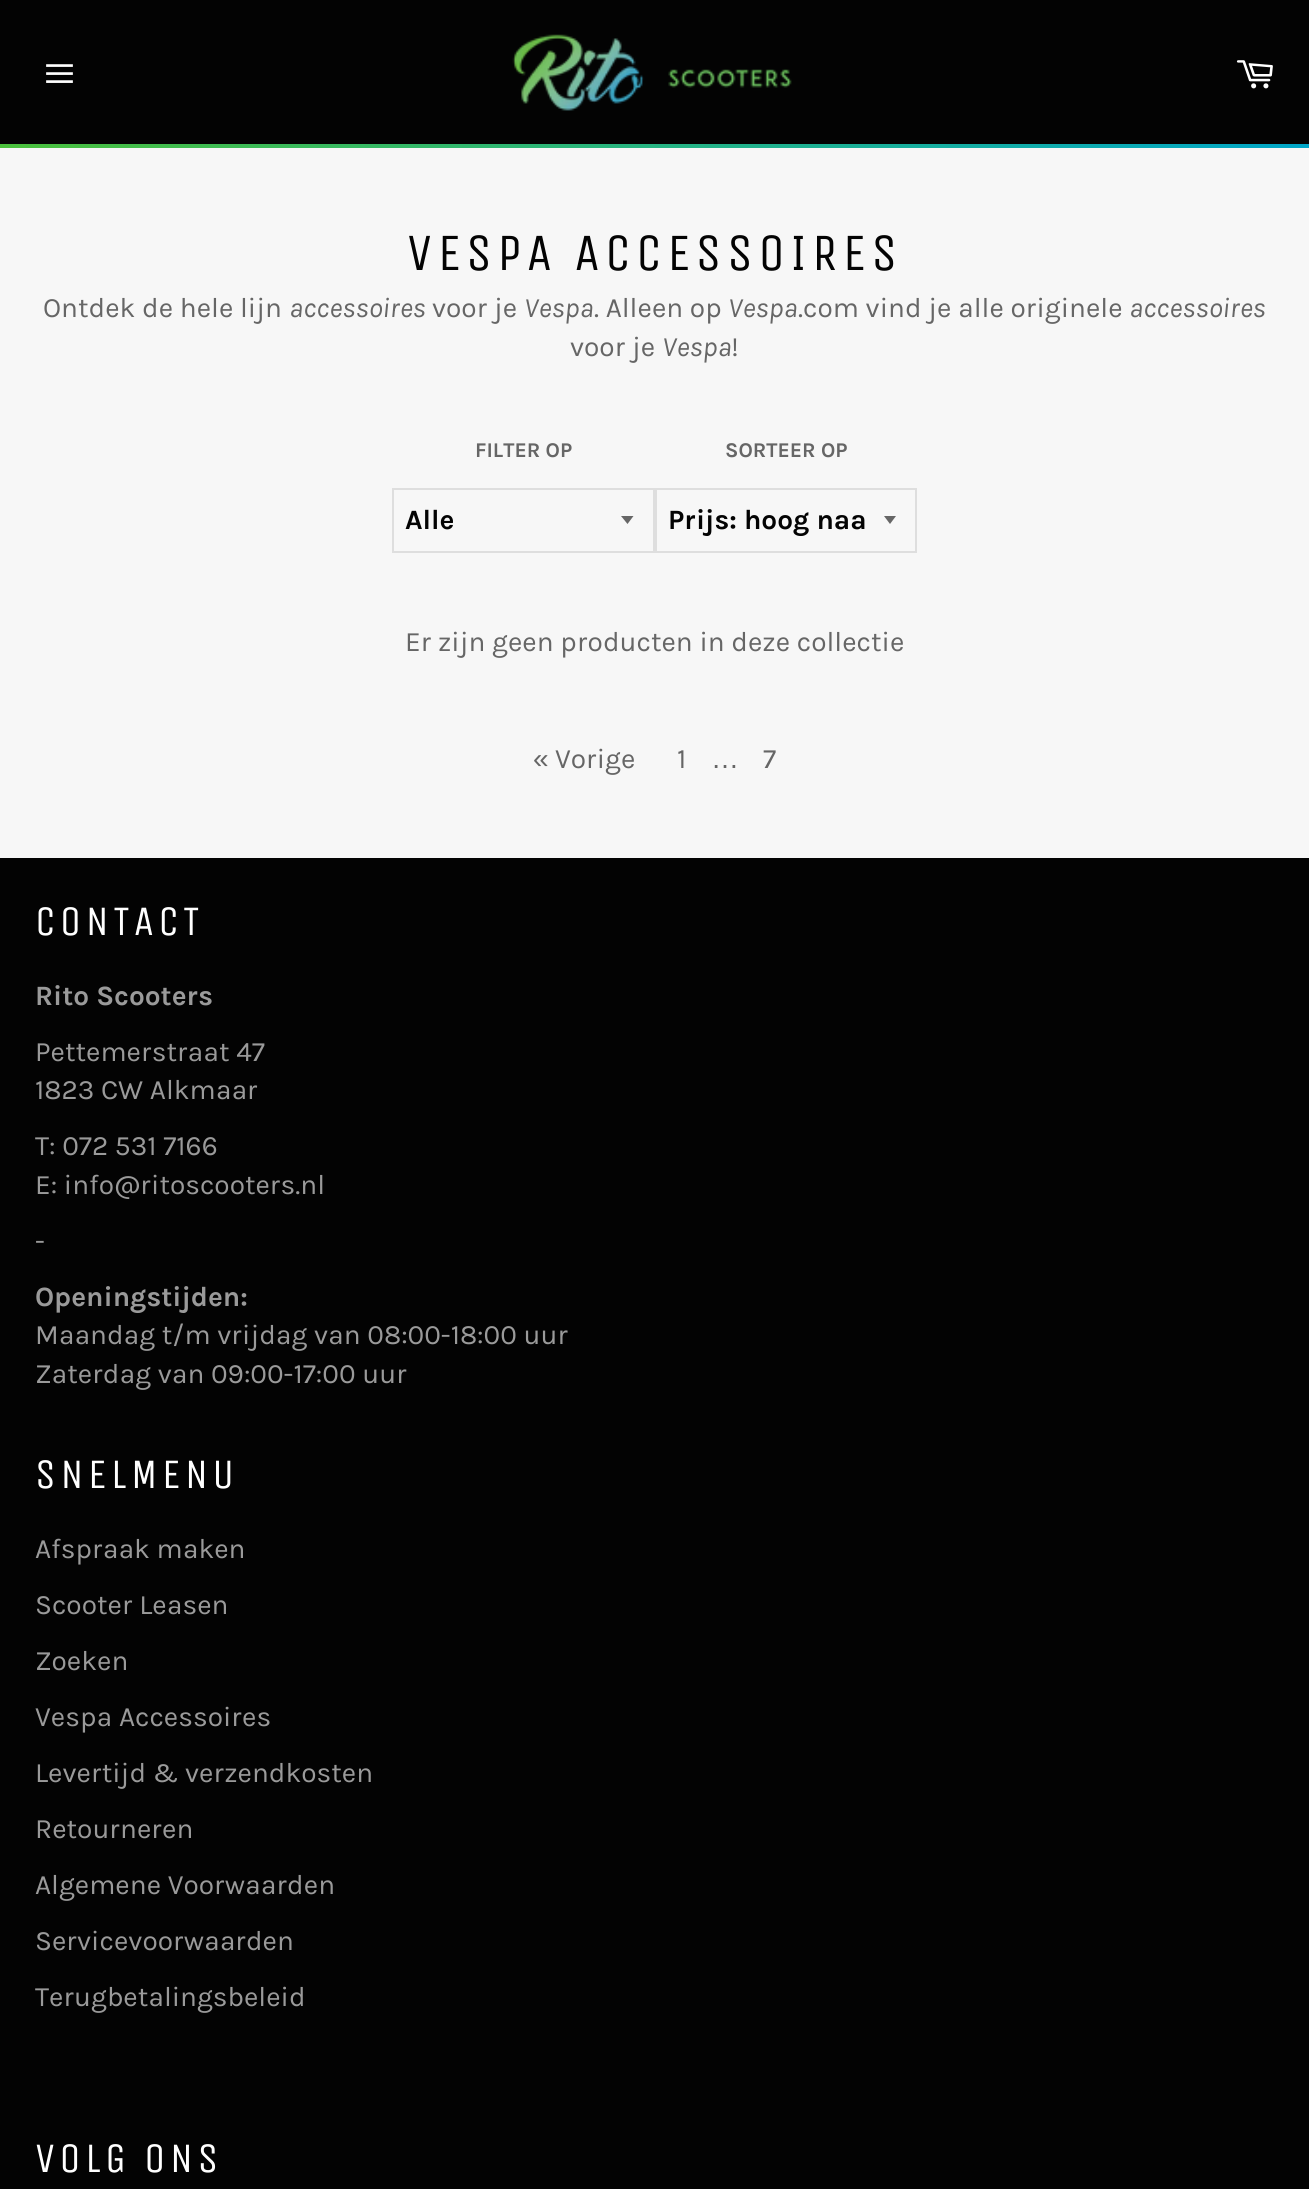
#include <cairo.h>
#include <math.h>
#include <stddef.h>


static void set_color(cairo_t *cr, unsigned color) {
    cairo_set_source_rgb(cr, (color >> 16) / 255.0, (color >> 8 & 255) / 255.0, (color & 255) / 255.0);
}

static void draw_text(cairo_t *cr, double x, double y, const char *s, const char *family, double size, int italic, int bold, unsigned color) {
    cairo_select_font_face(cr, family, italic ? CAIRO_FONT_SLANT_ITALIC : CAIRO_FONT_SLANT_NORMAL,
        bold ? CAIRO_FONT_WEIGHT_BOLD : CAIRO_FONT_WEIGHT_NORMAL);
    cairo_set_font_size(cr, size);
    set_color(cr, color);
    cairo_move_to(cr, x, y);
    cairo_show_text(cr, s);
}

static void draw_spaced(cairo_t *cr, double x, double y, const char *s, double letter, double word) {
    cairo_move_to(cr, x, y);
    while (*s) {
        char ch[5] = {0};
        int n = 0;
        do ch[n++] = *s++; while ((*s & 0xC0) == 0x80);
        cairo_show_text(cr, ch);
        cairo_rel_move_to(cr, letter + word * (*ch == ' '), 0);
    }
}

static void fill_rect(cairo_t *cr, double x, double y, double w, double h, unsigned color) {
    set_color(cr, color);
    cairo_rectangle(cr, x, y, w, h);
    cairo_fill(cr);
}

static void draw_image(cairo_t *cr, const char *path, double x, double y, double w, double h) {
    cairo_surface_t *image = cairo_image_surface_create_from_png(path);
    cairo_save(cr);
    cairo_set_source_surface(cr, image, x, y);
    cairo_rectangle(cr, x, y, w, h);
    cairo_fill(cr);
    cairo_restore(cr);
    cairo_surface_destroy(image);
}

int main(void) {
    cairo_surface_t *surface = cairo_image_surface_create(CAIRO_FORMAT_RGB24, 1309, 2189);
    cairo_t *cr = cairo_create(surface);
    cairo_font_options_t *options = cairo_font_options_create();
    cairo_font_options_set_hint_metrics(options, CAIRO_HINT_METRICS_OFF);
    cairo_font_options_set_hint_style(options, CAIRO_HINT_STYLE_NONE);
    cairo_set_font_options(cr, options);
    cairo_set_miter_limit(cr, 4);
    cairo_pattern_t *gradient;
    set_color(cr, 0xF7F7F7);
    cairo_paint(cr);
    fill_rect(cr, 0, 0, 1309, 144, 0x030303);
    draw_image(cr, "assets/img1.png", 46, 64, 27, 19);
    draw_image(cr, "assets/img2.png", 512, 34, 280, 77);
    draw_image(cr, "assets/img3.png", 1236, 60, 37, 29);
    gradient = cairo_pattern_create_linear(0, 145, 1309, 145);
    cairo_pattern_add_color_stop_rgba(gradient, 0, 0.294, 0.757, 0.235, 1);
    cairo_pattern_add_color_stop_rgba(gradient, 1, 0, 0.651, 0.784, 1);
    cairo_set_source(cr, gradient);
    cairo_pattern_destroy(gradient);
    cairo_rectangle(cr, 0, 144, 1309, 4);
    cairo_fill(cr);
    cairo_select_font_face(cr, "Unica One", CAIRO_FONT_SLANT_NORMAL, CAIRO_FONT_WEIGHT_NORMAL);
    cairo_set_font_size(cr, 52.5);
    set_color(cr, 0x030303);
    draw_spaced(cr, 407, 270, "VESPA ACCESSOIRES", 5.25, 0);
    draw_text(cr, 43, 317, "Ontdek de hele lijn", "Karla", 28, 0, 0, 0x666666);
    draw_text(cr, 289, 317, "accessoires", "Karla", 28, 1, 0, 0x666666);
    draw_text(cr, 432, 317, "voor je", "Karla", 28, 0, 0, 0x666666);
    draw_text(cr, 524, 317, "Vespa", "Karla", 28, 1, 0, 0x666666);
    draw_text(cr, 594, 317, ". Alleen op", "Karla", 28, 0, 0, 0x666666);
    draw_text(cr, 728, 317, "Vespa", "Karla", 28, 1, 0, 0x666666);
    draw_text(cr, 798, 317, ".com vind je alle originele", "Karla", 28, 0, 0, 0x666666);
    draw_text(cr, 1129, 317, "accessoires", "Karla", 28, 1, 0, 0x666666);
    draw_text(cr, 570, 356, "voor je", "Karla", 28, 0, 0, 0x666666);
    draw_text(cr, 662, 356, "Vespa", "Karla", 28, 1, 0, 0x666666);
    draw_text(cr, 731, 356, "!", "Karla", 28, 0, 0, 0x666666);
    draw_text(cr, 475, 457, "FILTER OP", "Karla", 21, 0, 1, 0x666666);
    cairo_new_path(cr);
    cairo_move_to(cr, 621, 516);
    cairo_line_to(cr, 627.5, 524);
    cairo_line_to(cr, 633.5, 516);
    cairo_close_path(cr);
    cairo_fill(cr);
    cairo_rectangle(cr, 393, 489, 261, 63);
    set_color(cr, 0xDEDEDE);
    cairo_stroke(cr);
    draw_text(cr, 405, 529, "Alle", "Karla", 28, 0, 1, 0x030303);
    draw_text(cr, 725, 457, "SORTEER OP", "Karla", 21, 0, 1, 0x666666);
    cairo_new_path(cr);
    cairo_move_to(cr, 884, 516);
    cairo_line_to(cr, 890, 524);
    cairo_line_to(cr, 896, 516);
    cairo_close_path(cr);
    cairo_fill(cr);
    cairo_rectangle(cr, 656, 489, 260, 63);
    set_color(cr, 0xDEDEDE);
    cairo_stroke(cr);
    draw_text(cr, 668, 529, "Prijs: hoog naa", "Karla", 28, 0, 1, 0x030303);
    draw_text(cr, 405, 651, "Er zijn geen producten in deze collectie", "Karla", 28, 0, 0, 0x666666);
    draw_text(cr, 533, 768, "«", "Liberation Sans", 28, 0, 0, 0x666666);
    draw_text(cr, 555, 768, "Vorige", "Karla", 28, 0, 0, 0x666666);
    draw_text(cr, 677, 768, "1", "Karla", 28, 0, 0, 0x666666);
    draw_text(cr, 711, 768, "…", "Liberation Sans", 28, 0, 0, 0x666666);
    draw_text(cr, 763, 768, "7", "Karla", 28, 0, 0, 0x666666);
    fill_rect(cr, 0, 858, 1309, 1331, 0x030303);
    cairo_select_font_face(cr, "Unica One", CAIRO_FONT_SLANT_NORMAL, CAIRO_FONT_WEIGHT_NORMAL);
    cairo_set_font_size(cr, 42);
    set_color(cr, 0xFFFFFF);
    draw_spaced(cr, 35, 935, "CONTACT", 4.25, 0);
    draw_text(cr, 35, 1005, "Rito Scooters", "Karla", 28, 0, 1, 0x9A9A9A);
    draw_text(cr, 35, 1061, "Pettemerstraat 47", "Karla", 28, 0, 0, 0x9A9A9A);
    draw_text(cr, 35, 1099, "1823 CW Alkmaar", "Karla", 28, 0, 0, 0x9A9A9A);
    draw_text(cr, 35, 1155, "T: 072 531 7166", "Karla", 28, 0, 0, 0x9A9A9A);
    draw_text(cr, 35, 1194, "E: info@ritoscooters.nl", "Karla", 28, 0, 0, 0x9A9A9A);
    draw_text(cr, 35, 1250, "-", "Karla", 28, 0, 0, 0x9A9A9A);
    draw_text(cr, 35, 1306, "Openingstijden:", "Karla", 28, 0, 1, 0x9A9A9A);
    draw_text(cr, 35, 1344, "Maandag t/m vrijdag van 08:00-18:00 uur", "Karla", 28, 0, 0, 0x9A9A9A);
    draw_text(cr, 35, 1383, "Zaterdag van 09:00-17:00 uur", "Karla", 28, 0, 0, 0x9A9A9A);
    cairo_select_font_face(cr, "Unica One", CAIRO_FONT_SLANT_NORMAL, CAIRO_FONT_WEIGHT_NORMAL);
    cairo_set_font_size(cr, 42);
    set_color(cr, 0xFFFFFF);
    draw_spaced(cr, 35, 1488, "SNELMENU", 4.25, 0);
    draw_text(cr, 35, 1558, "Afspraak maken", "Karla", 28, 0, 0, 0x9A9A9A);
    draw_text(cr, 35, 1614, "Scooter Leasen", "Karla", 28, 0, 0, 0x9A9A9A);
    draw_text(cr, 35, 1670, "Zoeken", "Karla", 28, 0, 0, 0x9A9A9A);
    draw_text(cr, 35, 1726, "Vespa Accessoires", "Karla", 28, 0, 0, 0x9A9A9A);
    draw_text(cr, 35, 1782, "Levertijd & verzendkosten", "Karla", 28, 0, 0, 0x9A9A9A);
    draw_text(cr, 35, 1838, "Retourneren", "Karla", 28, 0, 0, 0x9A9A9A);
    draw_text(cr, 35, 1894, "Algemene Voorwaarden", "Karla", 28, 0, 0, 0x9A9A9A);
    draw_text(cr, 35, 1950, "Servicevoorwaarden", "Karla", 28, 0, 0, 0x9A9A9A);
    draw_text(cr, 35, 2006, "Terugbetalingsbeleid", "Karla", 28, 0, 0, 0x9A9A9A);
    cairo_select_font_face(cr, "Unica One", CAIRO_FONT_SLANT_NORMAL, CAIRO_FONT_WEIGHT_NORMAL);
    cairo_set_font_size(cr, 42);
    set_color(cr, 0xFFFFFF);
    draw_spaced(cr, 35, 2172, "VOLG ONS", 4.25, 0);
    cairo_surface_write_to_png(surface, "output.png");
    cairo_font_options_destroy(options);
    cairo_destroy(cr);
    cairo_surface_destroy(surface);
    return 0;
}
